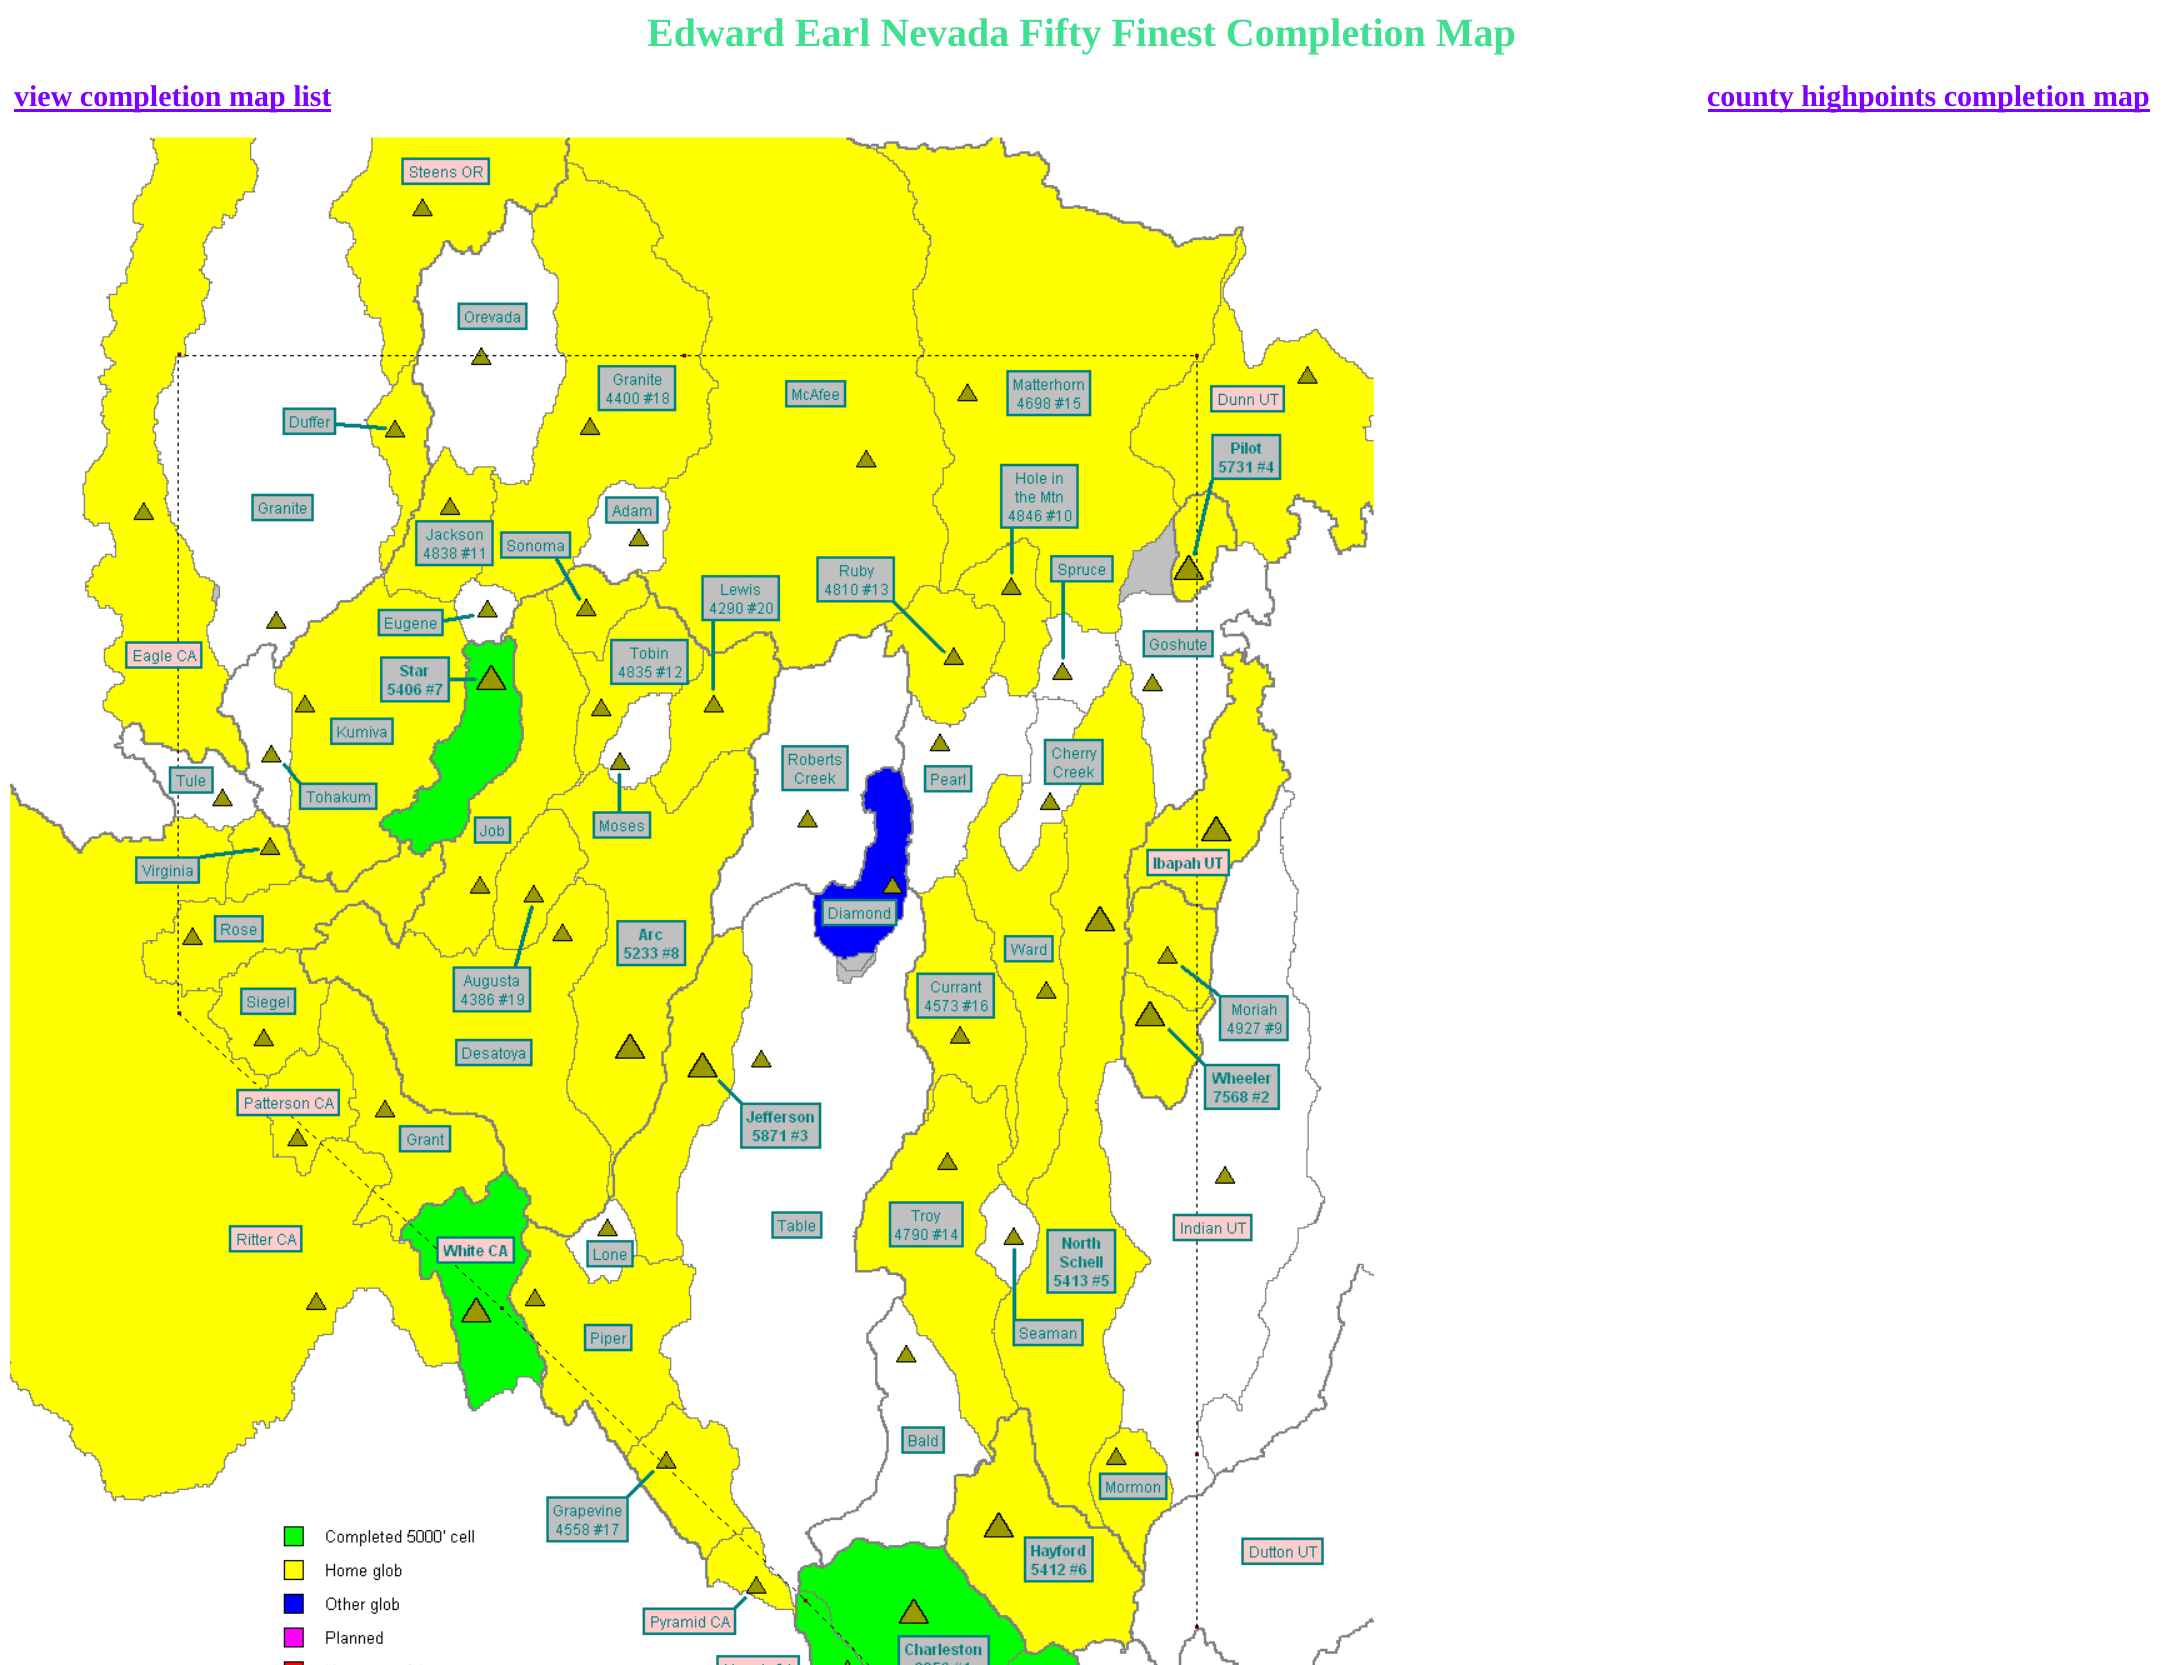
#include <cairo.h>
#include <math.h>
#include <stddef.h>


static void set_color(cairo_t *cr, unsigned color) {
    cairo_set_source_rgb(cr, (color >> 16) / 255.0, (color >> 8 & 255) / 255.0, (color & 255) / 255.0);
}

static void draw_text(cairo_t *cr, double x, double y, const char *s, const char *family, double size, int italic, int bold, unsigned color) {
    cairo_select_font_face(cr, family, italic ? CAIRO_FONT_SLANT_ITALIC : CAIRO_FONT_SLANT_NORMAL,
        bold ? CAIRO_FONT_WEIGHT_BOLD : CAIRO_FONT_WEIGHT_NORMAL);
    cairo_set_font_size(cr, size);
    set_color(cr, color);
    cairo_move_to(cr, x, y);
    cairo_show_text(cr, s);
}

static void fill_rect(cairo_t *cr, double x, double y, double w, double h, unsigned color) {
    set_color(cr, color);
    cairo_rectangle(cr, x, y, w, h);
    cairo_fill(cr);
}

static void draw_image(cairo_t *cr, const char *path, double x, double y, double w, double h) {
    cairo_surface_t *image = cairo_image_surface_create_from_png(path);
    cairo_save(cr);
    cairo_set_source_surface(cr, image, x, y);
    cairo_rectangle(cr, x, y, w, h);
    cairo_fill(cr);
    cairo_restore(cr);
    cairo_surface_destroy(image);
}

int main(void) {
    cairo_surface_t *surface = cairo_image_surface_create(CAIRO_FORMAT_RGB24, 2163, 1665);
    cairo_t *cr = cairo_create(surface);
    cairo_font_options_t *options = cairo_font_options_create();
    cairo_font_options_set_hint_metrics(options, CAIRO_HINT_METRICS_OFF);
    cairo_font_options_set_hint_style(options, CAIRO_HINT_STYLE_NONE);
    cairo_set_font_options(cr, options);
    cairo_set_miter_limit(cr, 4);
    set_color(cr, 0xFFFFFF);
    cairo_paint(cr);
    draw_text(cr, 647, 46, "Edward Earl Nevada Fifty Finest Completion Map", "Liberation Serif", 40, 0, 1, 0x40E090);
    fill_rect(cr, 14, 109, 317, 3, 0x8000FF);
    draw_text(cr, 14, 106, "view completion map list", "Liberation Serif", 30, 0, 1, 0x8000FF);
    fill_rect(cr, 1708, 109, 442, 3, 0x8000FF);
    draw_text(cr, 1707, 106, "county highpoints completion map", "Liberation Serif", 30, 0, 1, 0x8000FF);
    draw_image(cr, "assets/img1.png", 10, 137, 1364, 1528);
    cairo_surface_write_to_png(surface, "output.png");
    cairo_font_options_destroy(options);
    cairo_destroy(cr);
    cairo_surface_destroy(surface);
    return 0;
}
